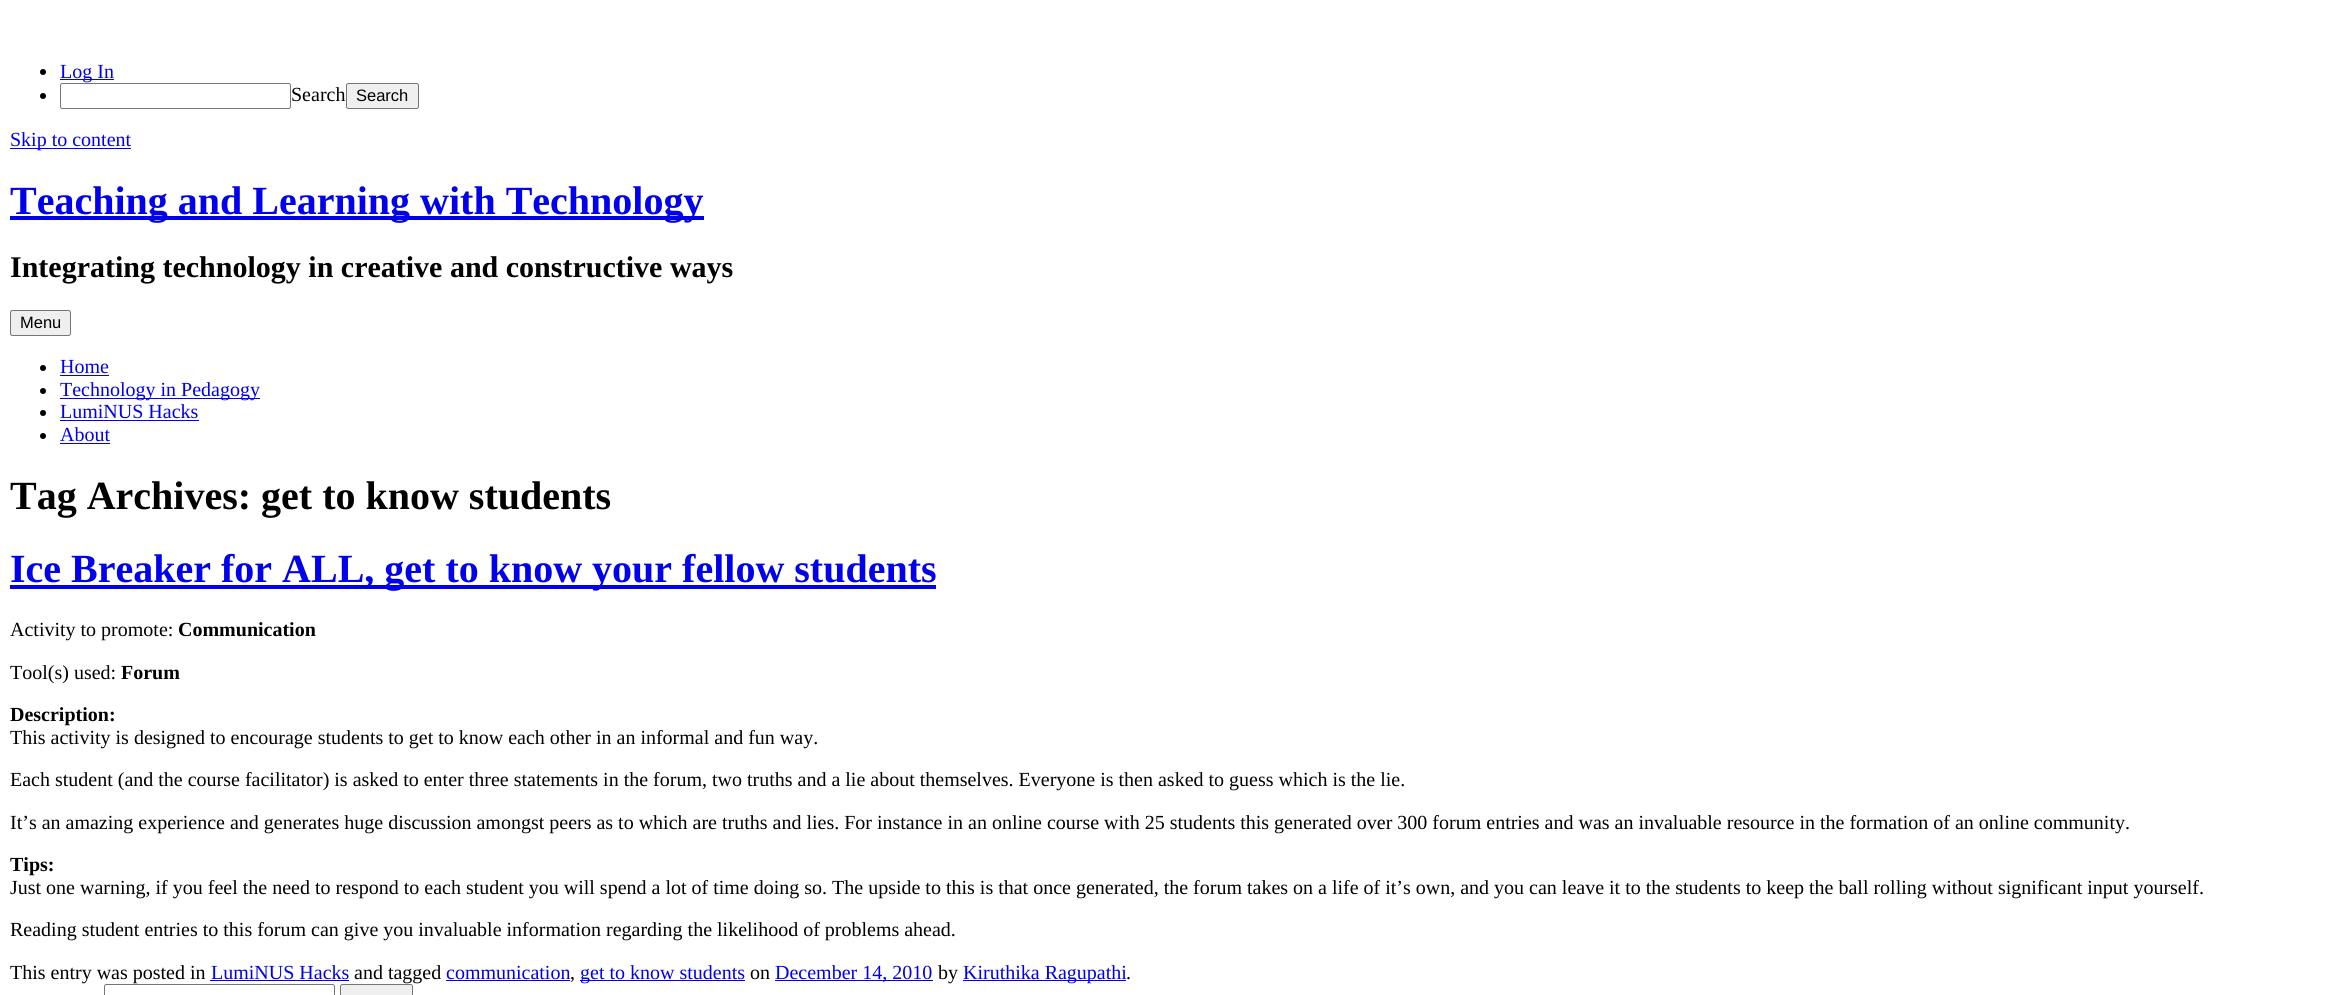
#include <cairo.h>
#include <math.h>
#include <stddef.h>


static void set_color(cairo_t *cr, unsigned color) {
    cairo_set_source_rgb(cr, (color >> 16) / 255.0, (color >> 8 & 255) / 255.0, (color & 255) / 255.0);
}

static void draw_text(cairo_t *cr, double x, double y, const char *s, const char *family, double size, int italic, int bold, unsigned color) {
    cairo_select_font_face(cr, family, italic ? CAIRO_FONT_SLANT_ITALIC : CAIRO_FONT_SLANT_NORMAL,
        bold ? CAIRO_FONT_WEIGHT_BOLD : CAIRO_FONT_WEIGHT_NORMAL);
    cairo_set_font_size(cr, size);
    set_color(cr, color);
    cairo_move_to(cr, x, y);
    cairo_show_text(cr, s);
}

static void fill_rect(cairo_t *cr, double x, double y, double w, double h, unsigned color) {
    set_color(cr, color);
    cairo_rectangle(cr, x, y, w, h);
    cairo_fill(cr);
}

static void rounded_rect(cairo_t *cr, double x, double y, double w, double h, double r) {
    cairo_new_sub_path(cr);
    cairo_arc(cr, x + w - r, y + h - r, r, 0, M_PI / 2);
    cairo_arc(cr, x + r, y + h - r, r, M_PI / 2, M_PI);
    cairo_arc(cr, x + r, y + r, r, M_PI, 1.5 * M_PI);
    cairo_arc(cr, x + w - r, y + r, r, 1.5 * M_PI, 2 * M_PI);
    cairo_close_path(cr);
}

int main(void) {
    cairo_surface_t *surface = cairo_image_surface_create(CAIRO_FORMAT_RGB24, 2343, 995);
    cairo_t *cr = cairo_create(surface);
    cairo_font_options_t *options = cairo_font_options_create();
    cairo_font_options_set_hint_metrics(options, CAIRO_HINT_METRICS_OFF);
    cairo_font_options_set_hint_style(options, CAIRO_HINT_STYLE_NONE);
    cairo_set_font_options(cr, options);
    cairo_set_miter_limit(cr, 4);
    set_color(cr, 0xFFFFFF);
    cairo_paint(cr);
    set_color(cr, 0x000000);
    cairo_arc(cr, 43, 72, 3, 0, 2 * M_PI);
    cairo_fill(cr);
    fill_rect(cr, 60, 79, 54, 1, 0x0000EE);
    draw_text(cr, 60, 78, "Log In", "Liberation Serif", 20, 0, 0, 0x0000EE);
    set_color(cr, 0x000000);
    cairo_new_path(cr);
    cairo_arc(cr, 43, 96, 3, 0, 2 * M_PI);
    cairo_fill(cr);
    rounded_rect(cr, 60.5, 83.5, 230, 25, 2);
    set_color(cr, 0x767676);
    cairo_set_line_width(cr, 1);
    cairo_stroke(cr);
    draw_text(cr, 291, 101, "Search", "Liberation Serif", 20, 0, 0, 0x000000);
    set_color(cr, 0xEFEFEF);
    rounded_rect(cr, 346.5, 83.5, 72, 25, 2);
    cairo_fill_preserve(cr);
    set_color(cr, 0x767676);
    cairo_stroke(cr);
    draw_text(cr, 356, 101, "Search", "Liberation Sans", 16.5, 0, 0, 0x000000);
    fill_rect(cr, 10, 148, 121, 1, 0x0000EE);
    draw_text(cr, 10, 146, "Skip to content", "Liberation Serif", 20, 0, 0, 0x0000EE);
    fill_rect(cr, 10, 216, 694, 4, 0x0000EE);
    draw_text(cr, 10, 214, "Teaching and Learning with Technology", "Liberation Serif", 40, 0, 1, 0x0000EE);
    draw_text(cr, 10, 277, "Integrating technology in creative and constructive ways", "Liberation Serif", 30, 0, 1, 0x000000);
    set_color(cr, 0xEFEFEF);
    rounded_rect(cr, 10.5, 310.5, 60, 25, 2);
    cairo_fill_preserve(cr);
    set_color(cr, 0x767676);
    cairo_stroke(cr);
    draw_text(cr, 20, 328, "Menu", "Liberation Sans", 16.5, 0, 0, 0x000000);
    cairo_new_path(cr);
    cairo_arc(cr, 43, 368, 3, 0, 2 * M_PI);
    cairo_fill(cr);
    draw_text(cr, 60, 373, "Home", "Liberation Serif", 20, 0, 0, 0x0000EE);
    fill_rect(cr, 60, 375, 49, 1, 0x0000EE);
    set_color(cr, 0x000000);
    cairo_new_path(cr);
    cairo_arc(cr, 43, 391, 3, 0, 2 * M_PI);
    cairo_fill(cr);
    fill_rect(cr, 60, 398, 200, 1, 0x0000EE);
    draw_text(cr, 60, 396, "Technology in Pedagogy", "Liberation Serif", 20, 0, 0, 0x0000EE);
    set_color(cr, 0x000000);
    cairo_new_path(cr);
    cairo_arc(cr, 43, 413, 3, 0, 2 * M_PI);
    cairo_fill(cr);
    draw_text(cr, 60, 418, "LumiNUS Hacks", "Liberation Serif", 20, 0, 0, 0x0000EE);
    fill_rect(cr, 60, 420, 139, 1, 0x0000EE);
    set_color(cr, 0x000000);
    cairo_new_path(cr);
    cairo_arc(cr, 43, 436, 3, 0, 2 * M_PI);
    cairo_fill(cr);
    draw_text(cr, 60, 441, "About", "Liberation Serif", 20, 0, 0, 0x0000EE);
    fill_rect(cr, 60, 443, 50, 1, 0x0000EE);
    draw_text(cr, 10, 509, "Tag Archives: get to know students", "Liberation Serif", 40, 0, 1, 0x000000);
    fill_rect(cr, 10, 585, 926, 4, 0x0000EE);
    draw_text(cr, 10, 582, "Ice Breaker for ALL, get to know your fellow students", "Liberation Serif", 40, 0, 1, 0x0000EE);
    draw_text(cr, 10, 636, "Activity to promote:", "Liberation Serif", 20, 0, 0, 0x000000);
    draw_text(cr, 178, 636, "Communication", "Liberation Serif", 20, 0, 1, 0x000000);
    draw_text(cr, 10, 679, "Tool(s) used:", "Liberation Serif", 20, 0, 0, 0x000000);
    draw_text(cr, 121, 679, "Forum", "Liberation Serif", 20, 0, 1, 0x000000);
    draw_text(cr, 10, 721, "Description:", "Liberation Serif", 20, 0, 1, 0x000000);
    draw_text(cr, 10, 744, "This activity is designed to encourage students to get to know each other in an informal and fun way.", "Liberation Serif", 20, 0, 0, 0x000000);
    draw_text(cr, 10, 786, "Each student (and the course facilitator) is asked to enter three statements in the forum, two truths and a lie about themselves. Everyone is then asked to guess which is the lie.", "Liberation Serif", 20, 0, 0, 0x000000);
    draw_text(cr, 10, 829, "It’s an amazing experience and generates huge discussion amongst peers as to which are truths and lies. For instance in an online course with 25 students this generated over 300 forum entries and was an invaluable resource in the formation of an online community.", "Liberation Serif", 20, 0, 0, 0x000000);
    draw_text(cr, 10, 871, "Tips:", "Liberation Serif", 20, 0, 1, 0x000000);
    draw_text(cr, 10, 894, "Just one warning, if you feel the need to respond to each student you will spend a lot of time doing so. The upside to this is that once generated, the forum takes on a life of it’s own, and you can leave it to the students to keep the ball rolling without significant input yourself.", "Liberation Serif", 20, 0, 0, 0x000000);
    draw_text(cr, 10, 936, "Reading student entries to this forum can give you invaluable information regarding the likelihood of problems ahead.", "Liberation Serif", 20, 0, 0, 0x000000);
    draw_text(cr, 10, 979, "This entry was posted in", "Liberation Serif", 20, 0, 0, 0x000000);
    draw_text(cr, 211, 979, "LumiNUS Hacks", "Liberation Serif", 20, 0, 0, 0x0000EE);
    fill_rect(cr, 210, 980, 139, 1, 0x0000EE);
    draw_text(cr, 354, 979, "and tagged", "Liberation Serif", 20, 0, 0, 0x000000);
    draw_text(cr, 446, 979, "communication", "Liberation Serif", 20, 0, 0, 0x0000EE);
    fill_rect(cr, 446, 980, 124, 1, 0x0000EE);
    draw_text(cr, 570, 979, ",", "Liberation Serif", 20, 0, 0, 0x000000);
    fill_rect(cr, 580, 980, 165, 1, 0x0000EE);
    draw_text(cr, 580, 979, "get to know students", "Liberation Serif", 20, 0, 0, 0x0000EE);
    draw_text(cr, 750, 979, "on", "Liberation Serif", 20, 0, 0, 0x000000);
    fill_rect(cr, 775, 980, 158, 1, 0x0000EE);
    draw_text(cr, 775, 979, "December 14, 2010", "Liberation Serif", 20, 0, 0, 0x0000EE);
    draw_text(cr, 938, 979, "by", "Liberation Serif", 20, 0, 0, 0x000000);
    fill_rect(cr, 963, 980, 163, 1, 0x0000EE);
    draw_text(cr, 963, 979, "Kiruthika Ragupathi", "Liberation Serif", 20, 0, 0, 0x0000EE);
    draw_text(cr, 1126, 979, ".", "Liberation Serif", 20, 0, 0, 0x000000);
    rounded_rect(cr, 104.5, 984.5, 230, 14, 2);
    set_color(cr, 0x767676);
    cairo_stroke(cr);
    set_color(cr, 0xEFEFEF);
    rounded_rect(cr, 340.5, 984.5, 72, 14, 2);
    cairo_fill_preserve(cr);
    set_color(cr, 0x767676);
    cairo_stroke(cr);
    cairo_surface_write_to_png(surface, "output.png");
    cairo_font_options_destroy(options);
    cairo_destroy(cr);
    cairo_surface_destroy(surface);
    return 0;
}
